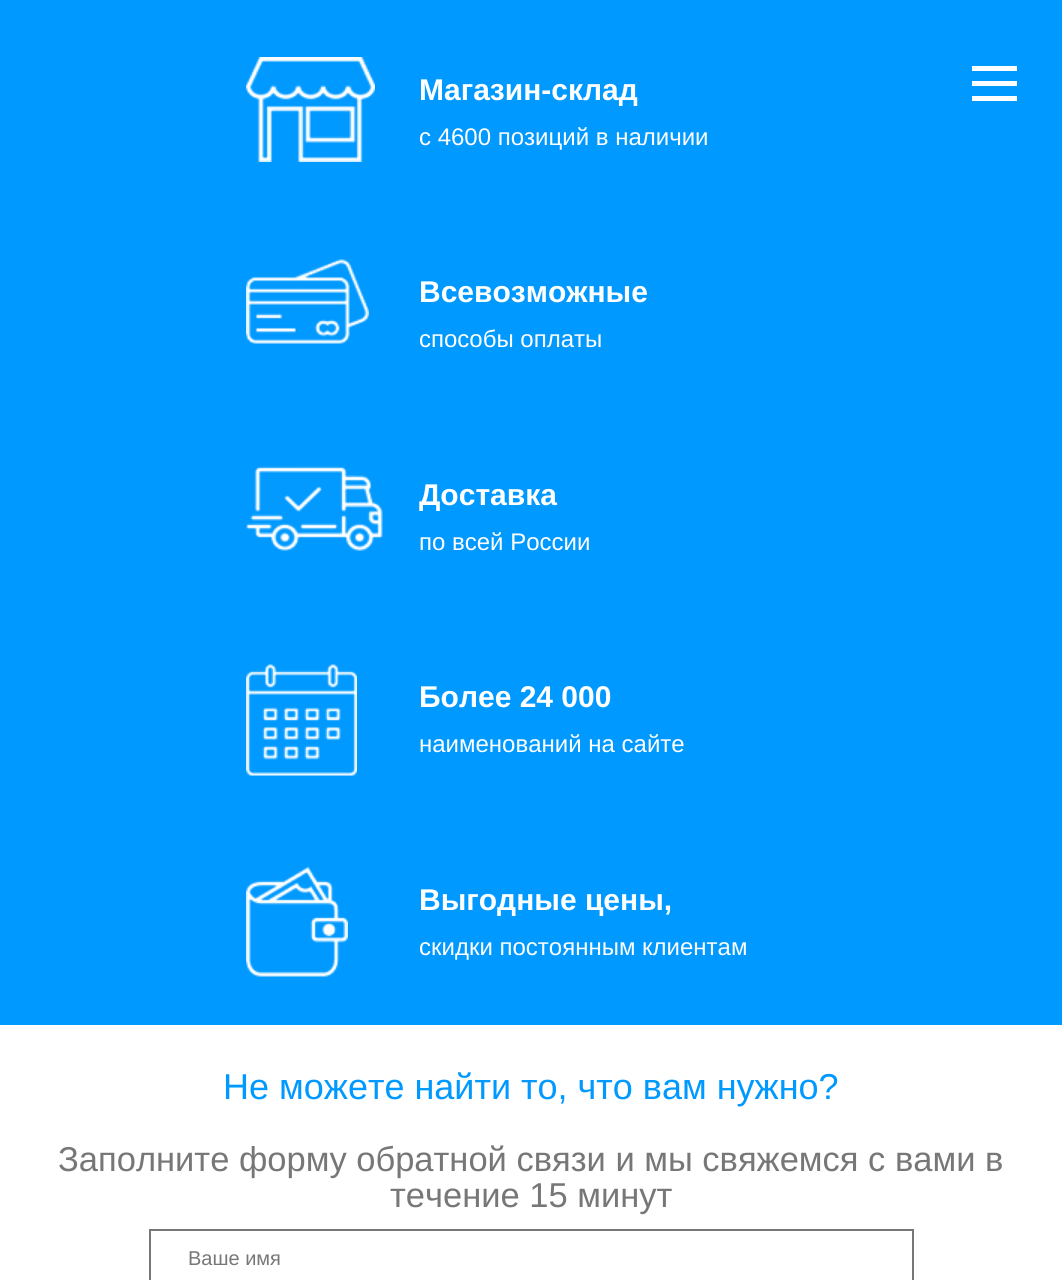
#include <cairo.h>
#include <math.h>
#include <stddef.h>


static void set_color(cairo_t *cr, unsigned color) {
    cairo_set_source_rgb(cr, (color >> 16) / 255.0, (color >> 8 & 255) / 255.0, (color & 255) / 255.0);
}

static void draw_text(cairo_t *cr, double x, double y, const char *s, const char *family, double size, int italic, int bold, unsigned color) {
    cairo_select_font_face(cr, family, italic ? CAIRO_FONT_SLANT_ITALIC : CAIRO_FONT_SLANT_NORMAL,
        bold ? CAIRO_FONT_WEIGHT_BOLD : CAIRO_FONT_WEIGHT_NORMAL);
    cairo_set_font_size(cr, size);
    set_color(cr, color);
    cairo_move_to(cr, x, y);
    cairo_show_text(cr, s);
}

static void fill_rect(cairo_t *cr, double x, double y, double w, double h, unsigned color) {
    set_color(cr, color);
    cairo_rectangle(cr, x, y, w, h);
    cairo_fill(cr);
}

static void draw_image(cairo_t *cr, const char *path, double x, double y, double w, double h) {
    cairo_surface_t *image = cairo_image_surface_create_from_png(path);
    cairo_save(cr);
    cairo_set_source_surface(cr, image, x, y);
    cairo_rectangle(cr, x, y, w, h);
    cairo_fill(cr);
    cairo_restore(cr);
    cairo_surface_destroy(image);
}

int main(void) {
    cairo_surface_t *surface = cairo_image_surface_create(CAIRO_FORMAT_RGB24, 1062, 1280);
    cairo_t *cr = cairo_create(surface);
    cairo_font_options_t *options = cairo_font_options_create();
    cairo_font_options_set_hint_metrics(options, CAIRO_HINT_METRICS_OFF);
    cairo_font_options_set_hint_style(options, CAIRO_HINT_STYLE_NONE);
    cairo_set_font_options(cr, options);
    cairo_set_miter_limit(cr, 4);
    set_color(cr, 0xFFFFFF);
    cairo_paint(cr);
    fill_rect(cr, 0, 0, 1062, 1025, 0x0099FF);
    draw_image(cr, "assets/img1.png", 246, 57, 129, 105);
    draw_text(cr, 419, 100, "Магазин-склад", "Liberation Sans", 30, 0, 1, 0xFFFFFF);
    draw_text(cr, 419, 145, "с 4600 позиций в наличии", "Liberation Sans", 24, 0, 0, 0xFFFFFF);
    draw_image(cr, "assets/img2.png", 246, 259, 123, 85);
    draw_text(cr, 419, 302, "Всевозможные", "Liberation Sans", 30, 0, 1, 0xFFFFFF);
    draw_text(cr, 419, 347, "способы оплаты", "Liberation Sans", 24, 0, 0, 0xFFFFFF);
    draw_image(cr, "assets/img3.png", 246, 466, 137, 86);
    draw_text(cr, 419, 505, "Доставка", "Liberation Sans", 30, 0, 1, 0xFFFFFF);
    draw_text(cr, 419, 550, "по всей России", "Liberation Sans", 24, 0, 0, 0xFFFFFF);
    draw_image(cr, "assets/img4.png", 246, 664, 111, 112);
    draw_text(cr, 419, 707, "Более 24 000", "Liberation Sans", 30, 0, 1, 0xFFFFFF);
    draw_text(cr, 419, 752, "наименований на сайте", "Liberation Sans", 24, 0, 0, 0xFFFFFF);
    draw_image(cr, "assets/img5.png", 246, 867, 102, 110);
    draw_text(cr, 419, 910, "Выгодные цены,", "Liberation Sans", 30, 0, 1, 0xFFFFFF);
    draw_text(cr, 419, 955, "скидки постоянным клиентам", "Liberation Sans", 24, 0, 0, 0xFFFFFF);
    fill_rect(cr, 972, 81, 45, 5, 0xFFFFFF);
    fill_rect(cr, 972, 66, 45, 5, 0xFFFFFF);
    fill_rect(cr, 972, 96, 45, 5, 0xFFFFFF);
    draw_text(cr, 223, 1099, "Не можете найти то, что вам нужно?", "Liberation Sans", 36, 0, 0, 0x0099FF);
    draw_text(cr, 58, 1171, "Заполните форму обратной связи и мы свяжемся с вами в", "Liberation Sans", 34.5, 0, 0, 0x777777);
    draw_text(cr, 390, 1207, "течение 15 минут", "Liberation Sans", 34.5, 0, 0, 0x777777);
    cairo_rectangle(cr, 150, 1230, 763, 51);
    cairo_stroke(cr);
    draw_text(cr, 188, 1265, "Ваше имя", "Liberation Sans", 20, 0, 0, 0x777777);
    cairo_surface_write_to_png(surface, "output.png");
    cairo_font_options_destroy(options);
    cairo_destroy(cr);
    cairo_surface_destroy(surface);
    return 0;
}
